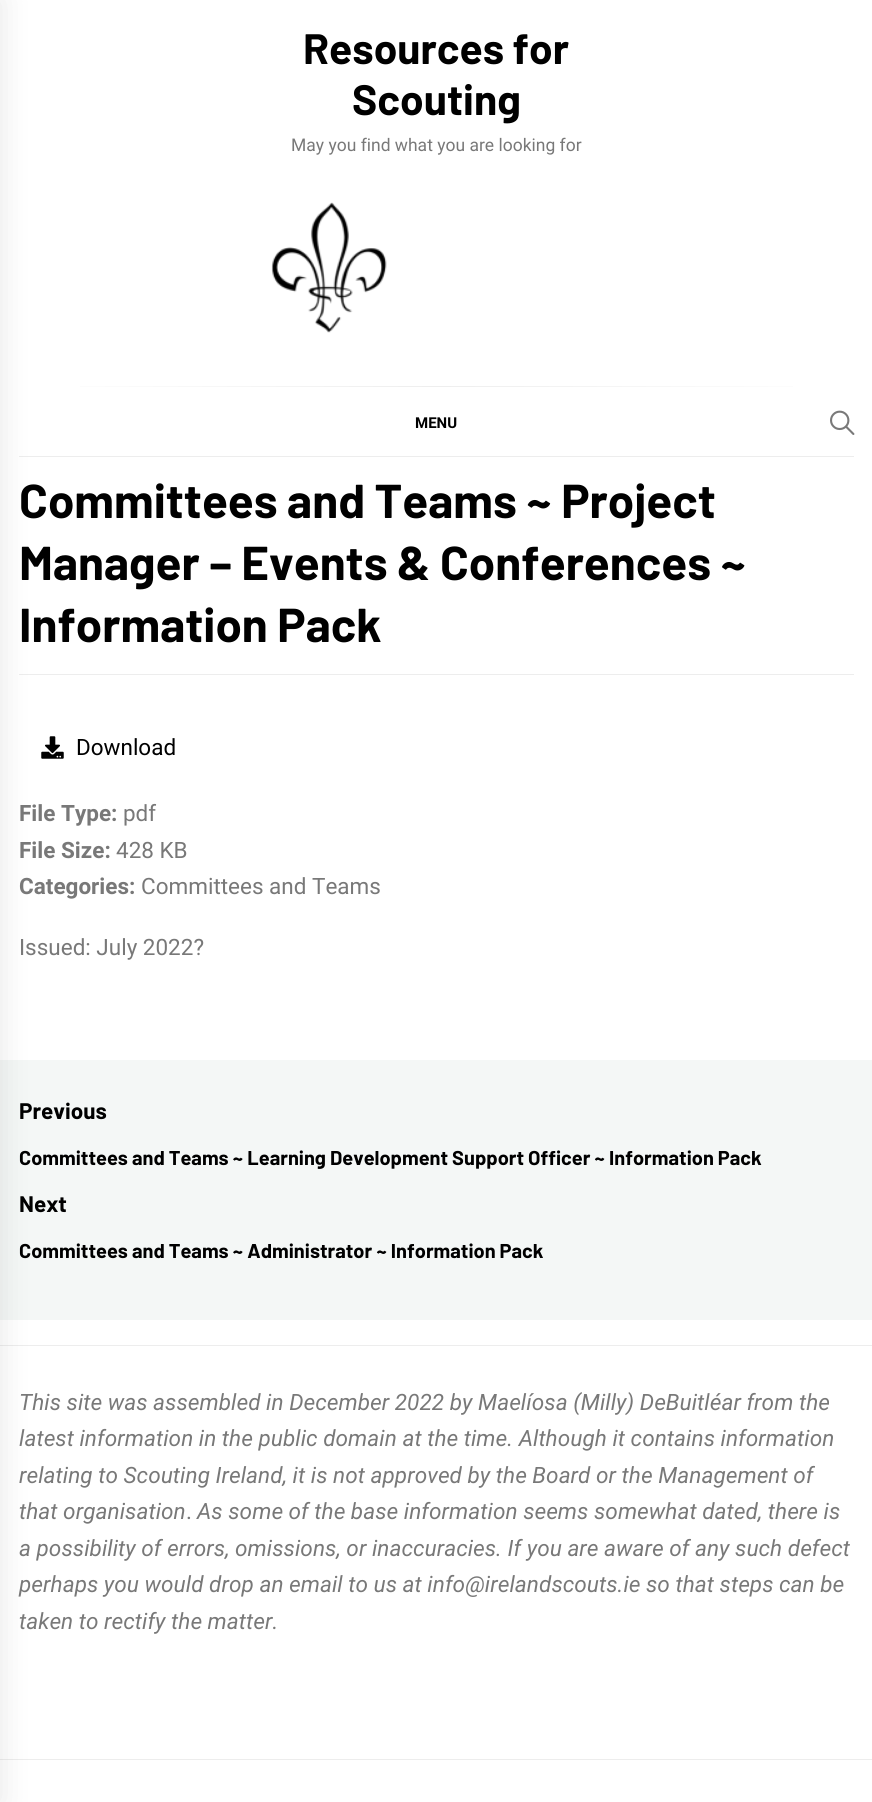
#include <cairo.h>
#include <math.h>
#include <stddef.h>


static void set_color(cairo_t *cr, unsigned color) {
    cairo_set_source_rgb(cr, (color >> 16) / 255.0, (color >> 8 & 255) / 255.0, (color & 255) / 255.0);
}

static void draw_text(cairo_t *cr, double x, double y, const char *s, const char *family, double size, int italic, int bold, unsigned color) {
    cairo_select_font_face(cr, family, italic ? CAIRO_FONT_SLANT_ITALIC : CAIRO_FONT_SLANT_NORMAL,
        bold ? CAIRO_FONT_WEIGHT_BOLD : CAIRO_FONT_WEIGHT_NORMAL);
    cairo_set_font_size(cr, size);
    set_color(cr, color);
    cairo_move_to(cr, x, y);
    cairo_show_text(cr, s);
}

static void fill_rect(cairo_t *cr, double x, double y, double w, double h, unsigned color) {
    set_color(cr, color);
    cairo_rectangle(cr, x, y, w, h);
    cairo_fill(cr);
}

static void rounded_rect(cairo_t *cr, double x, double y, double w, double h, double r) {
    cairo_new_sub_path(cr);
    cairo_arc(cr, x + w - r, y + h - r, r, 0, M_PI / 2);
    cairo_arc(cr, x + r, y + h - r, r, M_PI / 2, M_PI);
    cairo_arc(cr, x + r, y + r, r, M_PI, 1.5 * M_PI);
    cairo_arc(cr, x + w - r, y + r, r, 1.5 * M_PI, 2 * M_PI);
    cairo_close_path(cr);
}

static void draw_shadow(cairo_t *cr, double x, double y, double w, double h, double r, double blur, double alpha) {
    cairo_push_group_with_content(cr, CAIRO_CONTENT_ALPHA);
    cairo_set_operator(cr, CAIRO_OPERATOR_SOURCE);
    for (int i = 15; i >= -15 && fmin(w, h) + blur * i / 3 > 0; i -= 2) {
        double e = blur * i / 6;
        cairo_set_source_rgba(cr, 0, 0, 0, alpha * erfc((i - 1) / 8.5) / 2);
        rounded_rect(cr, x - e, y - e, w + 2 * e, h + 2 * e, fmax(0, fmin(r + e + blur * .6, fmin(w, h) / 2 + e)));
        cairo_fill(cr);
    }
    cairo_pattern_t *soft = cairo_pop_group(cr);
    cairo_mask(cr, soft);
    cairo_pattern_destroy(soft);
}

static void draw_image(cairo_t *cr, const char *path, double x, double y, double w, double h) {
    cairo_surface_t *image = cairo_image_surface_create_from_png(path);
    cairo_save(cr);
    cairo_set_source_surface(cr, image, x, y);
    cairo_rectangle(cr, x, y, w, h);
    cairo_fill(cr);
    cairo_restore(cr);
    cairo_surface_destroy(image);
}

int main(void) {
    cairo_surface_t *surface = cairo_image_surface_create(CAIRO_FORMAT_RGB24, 872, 1802);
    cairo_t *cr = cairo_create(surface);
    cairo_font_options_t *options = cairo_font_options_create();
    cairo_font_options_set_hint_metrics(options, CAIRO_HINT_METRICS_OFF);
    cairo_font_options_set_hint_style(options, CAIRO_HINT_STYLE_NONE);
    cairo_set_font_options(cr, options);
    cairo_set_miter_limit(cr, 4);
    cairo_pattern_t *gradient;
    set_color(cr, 0xFFFFFF);
    cairo_paint(cr);
    fill_rect(cr, 19, 456, 835, 1, 0xEDEDED);
    fill_rect(cr, 19, 674, 835, 1, 0xEDEDED);
    draw_image(cr, "assets/img3.png", 41, 736, 23, 23);
    fill_rect(cr, 0, 1060, 872, 260, 0xF4F7F6);
    fill_rect(cr, 0, 1345, 872, 1, 0xEDEDED);
    fill_rect(cr, 0, 1759, 872, 1, 0xEDEDED);
    set_color(cr, 0x000000);
    draw_shadow(cr, -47, 0, 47, 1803, 0, 15.5, 0.1);
    draw_text(cr, 303, 64, "Resources for", "Barlow", 42.5, 0, 1, 0x000000);
    draw_text(cr, 352, 115, "Scouting", "Barlow", 42.5, 0, 1, 0x000000);
    draw_text(cr, 291, 151, "May you find what you are looking for", "Roboto", 17.5, 0, 0, 0x787878);
    draw_image(cr, "assets/img1.png", 271, 202, 116, 131);
    gradient = cairo_pattern_create_linear(854, 387, 19, 387);
    cairo_pattern_add_color_stop_rgba(gradient, 0, 1, 1, 1, 1);
    cairo_pattern_add_color_stop_rgba(gradient, 0.5, 0.933, 0.933, 0.933, 1);
    cairo_pattern_add_color_stop_rgba(gradient, 1, 1, 1, 1, 1);
    cairo_set_source(cr, gradient);
    cairo_pattern_destroy(gradient);
    cairo_rectangle(cr, 80, 386, 713, 1);
    cairo_fill(cr);
    draw_text(cr, 415, 428, "MENU", "Roboto", 15, 0, 1, 0x000000);
    draw_image(cr, "assets/img2.png", 830, 410, 25, 25);
    draw_text(cr, 19, 518, "Committees and Teams ~ Project", "Barlow", 47.5, 0, 1, 0x000000);
    draw_text(cr, 19, 580, "Manager – Events & Conferences ~", "Barlow", 47.5, 0, 1, 0x000000);
    draw_text(cr, 19, 642, "Information Pack", "Barlow", 47.5, 0, 1, 0x000000);
    draw_text(cr, 76, 755, "Download", "Roboto", 22.5, 0, 0, 0x000000);
    draw_text(cr, 19, 821, "File Type:", "Roboto", 22.5, 0, 1, 0x787878);
    draw_text(cr, 123, 821, "pdf", "Roboto", 22.5, 0, 0, 0x787878);
    draw_text(cr, 19, 858, "File Size:", "Roboto", 22.5, 0, 1, 0x787878);
    draw_text(cr, 116, 858, "428 KB", "Roboto", 22.5, 0, 0, 0x787878);
    draw_text(cr, 19, 894, "Categories:", "Roboto", 22.5, 0, 1, 0x787878);
    draw_text(cr, 141, 894, "Committees and Teams", "Roboto", 22.5, 0, 0, 0x787878);
    draw_text(cr, 19, 955, "Issued: July 2022?", "Roboto", 22.5, 0, 0, 0x787878);
    draw_text(cr, 19, 1119, "Previous", "Barlow", 22.5, 0, 1, 0x000000);
    draw_text(cr, 19, 1165, "Committees and Teams ~ Learning Development Support Officer ~ Information Pack", "Barlow", 20, 0, 1, 0x000000);
    draw_text(cr, 19, 1212, "Next", "Barlow", 22.5, 0, 1, 0x000000);
    draw_text(cr, 19, 1258, "Committees and Teams ~ Administrator ~ Information Pack", "Barlow", 20, 0, 1, 0x000000);
    draw_text(cr, 19, 1410, "This site was assembled in December 2022 by Maelíosa (Milly) DeBuitléar from the", "Roboto", 22.5, 1, 0, 0x787878);
    draw_text(cr, 19, 1446, "latest information in the public domain at the time. Although it contains information", "Roboto", 22.5, 1, 0, 0x787878);
    draw_text(cr, 19, 1483, "relating to Scouting Ireland, it is not approved by the Board or the Management of", "Roboto", 22.5, 1, 0, 0x787878);
    draw_text(cr, 19, 1519, "that organisation", "Roboto", 22.5, 1, 0, 0x787878);
    draw_text(cr, 186, 1519, ".", "Roboto", 22.5, 0, 0, 0x787878);
    draw_text(cr, 197, 1519, "As some of the base information seems somewhat dated, there is", "Roboto", 22.5, 1, 0, 0x787878);
    draw_text(cr, 19, 1556, "a possibility of errors, omissions, or inaccuracies. If you are aware of any such defect", "Roboto", 22.5, 1, 0, 0x787878);
    draw_text(cr, 19, 1592, "perhaps you would drop an email to us at info@irelandscouts.ie so that steps can be", "Roboto", 22.5, 1, 0, 0x787878);
    draw_text(cr, 19, 1629, "taken to rectify the matter.", "Roboto", 22.5, 1, 0, 0x787878);
    cairo_surface_write_to_png(surface, "output.png");
    cairo_font_options_destroy(options);
    cairo_destroy(cr);
    cairo_surface_destroy(surface);
    return 0;
}
